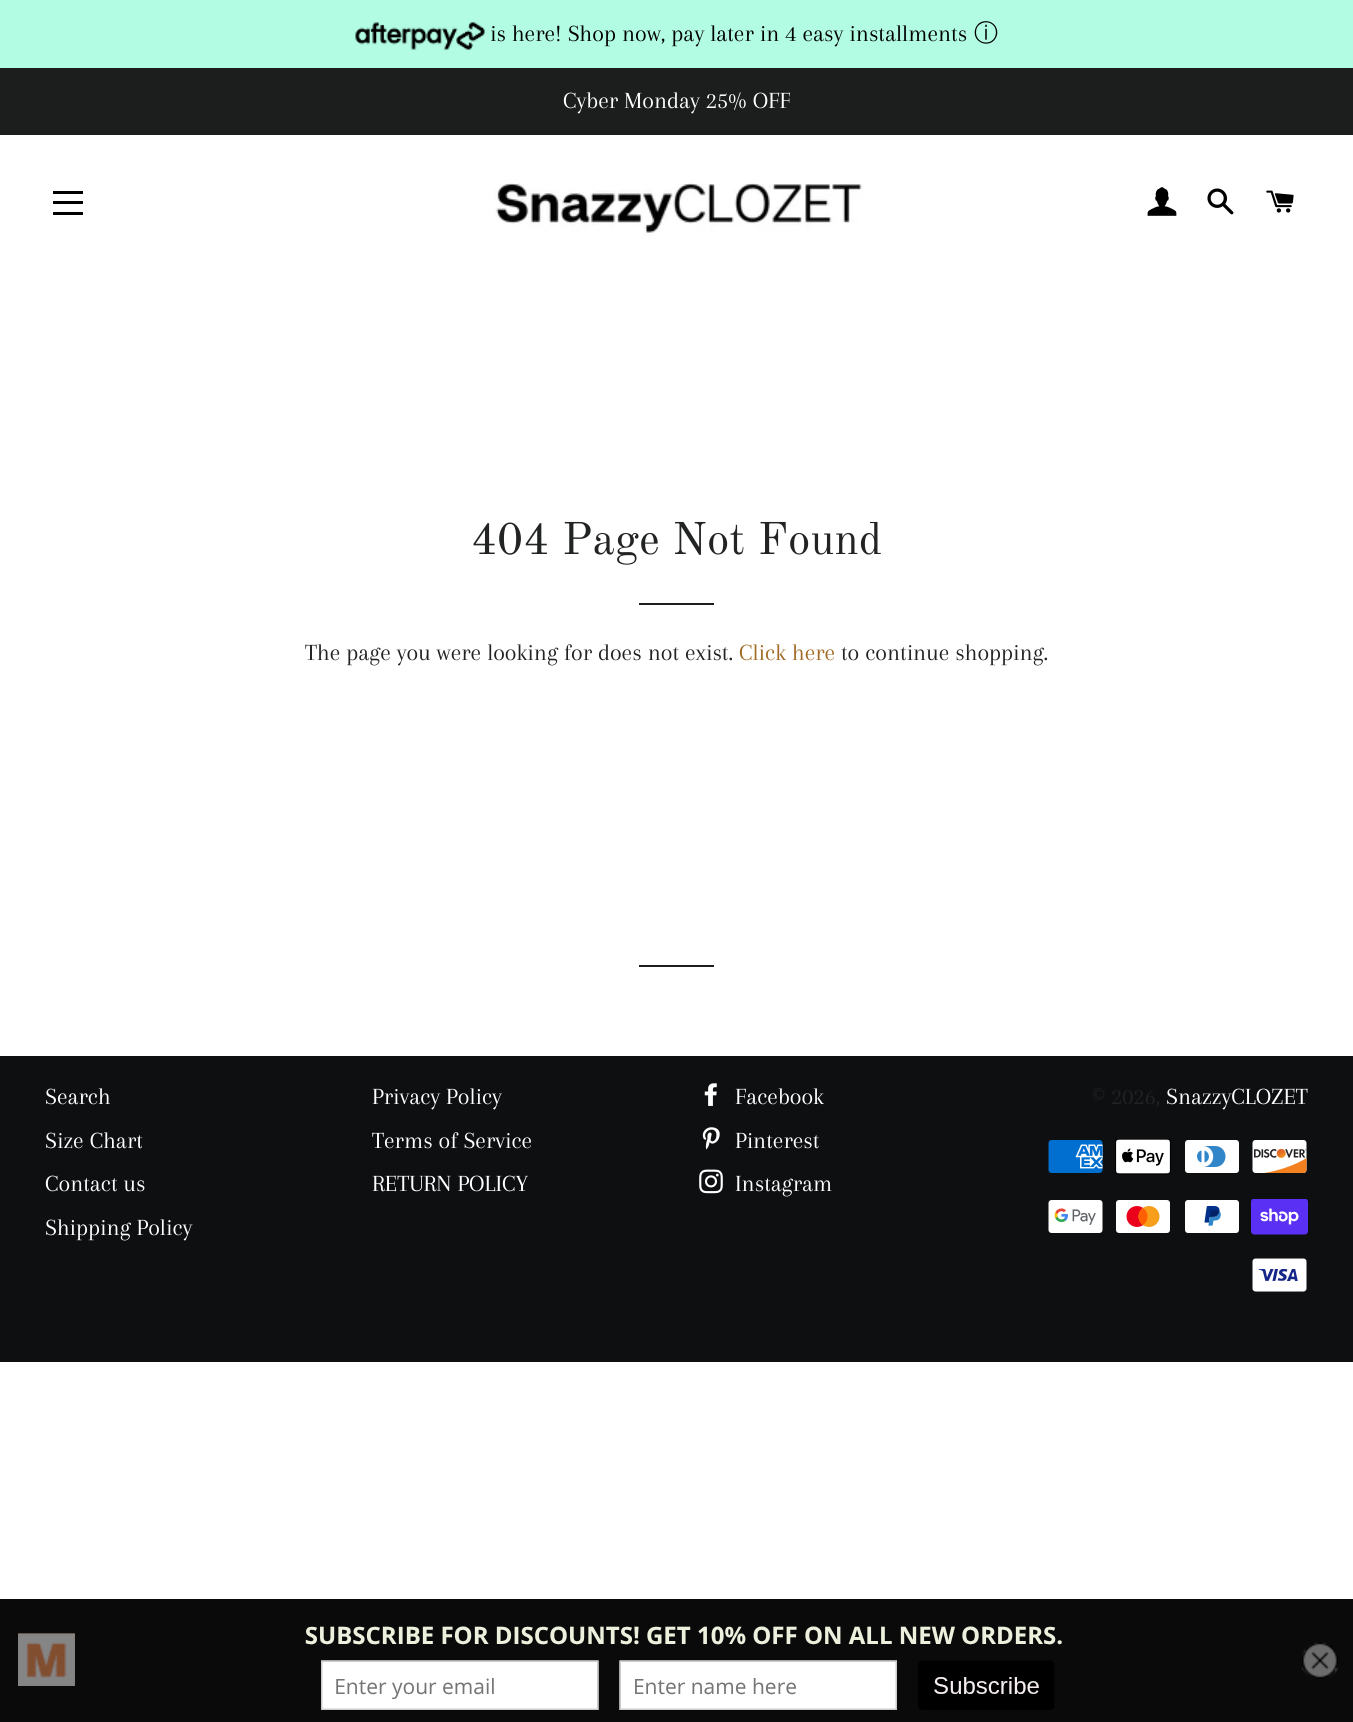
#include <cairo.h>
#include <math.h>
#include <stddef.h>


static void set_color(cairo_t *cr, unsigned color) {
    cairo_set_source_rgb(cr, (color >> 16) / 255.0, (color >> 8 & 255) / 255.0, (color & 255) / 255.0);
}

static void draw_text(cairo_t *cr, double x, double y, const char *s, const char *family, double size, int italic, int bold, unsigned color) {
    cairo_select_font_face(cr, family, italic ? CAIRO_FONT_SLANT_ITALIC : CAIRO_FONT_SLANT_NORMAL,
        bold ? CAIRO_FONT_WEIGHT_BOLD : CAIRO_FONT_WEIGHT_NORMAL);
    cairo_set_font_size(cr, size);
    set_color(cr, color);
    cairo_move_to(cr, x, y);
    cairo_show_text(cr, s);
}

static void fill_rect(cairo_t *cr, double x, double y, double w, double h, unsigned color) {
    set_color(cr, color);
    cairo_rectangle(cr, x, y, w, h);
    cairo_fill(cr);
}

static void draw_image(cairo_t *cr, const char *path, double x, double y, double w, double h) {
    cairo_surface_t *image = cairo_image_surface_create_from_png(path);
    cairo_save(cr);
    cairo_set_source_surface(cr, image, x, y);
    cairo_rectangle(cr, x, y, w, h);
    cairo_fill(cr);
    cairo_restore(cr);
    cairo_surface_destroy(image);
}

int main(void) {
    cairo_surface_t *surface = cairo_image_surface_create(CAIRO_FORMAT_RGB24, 1353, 1722);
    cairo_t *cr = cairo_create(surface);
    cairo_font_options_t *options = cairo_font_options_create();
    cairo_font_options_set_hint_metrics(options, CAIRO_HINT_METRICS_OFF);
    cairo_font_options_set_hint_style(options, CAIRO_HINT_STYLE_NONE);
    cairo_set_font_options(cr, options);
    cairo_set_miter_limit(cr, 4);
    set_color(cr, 0xFFFFFF);
    cairo_paint(cr);
    fill_rect(cr, 0, 0, 1353, 68, 0xB2FCE4);
    draw_image(cr, "assets/img1.png", 355, 22, 130, 28);
    draw_text(cr, 490, 41, "is here! Shop now, pay later in 4 easy installments", "Arapey", 24, 0, 0, 0x000000);
    draw_text(cr, 974, 41, "ⓘ", "WenQuanYi Zen Hei Medium", 24, 0, 0, 0x000000);
    fill_rect(cr, 0, 68, 1353, 67, 0x1C1D1D);
    draw_text(cr, 563, 108, "Cyber Monday 25% OFF", "Arapey", 24, 0, 0, 0xFFFFFF);
    fill_rect(cr, 53, 191, 30, 3, 0x000000);
    fill_rect(cr, 53, 201, 30, 3, 0x000000);
    fill_rect(cr, 53, 212, 30, 3, 0x000000);
    draw_image(cr, "assets/img2.png", 494, 183, 370, 53);
    draw_image(cr, "assets/img3.png", 1147, 187, 30, 29);
    draw_image(cr, "assets/img4.png", 1207, 188, 27, 27);
    draw_image(cr, "assets/img5.png", 1266, 190, 28, 23);
    draw_text(cr, 471, 554, "404 Page Not Found", "Old Standard TT", 45, 0, 0, 0x222323);
    fill_rect(cr, 639, 603, 75, 2, 0x1C1D1D);
    draw_text(cr, 305, 660, "The page you were looking for does not exist.", "Arapey", 24, 0, 0, 0x222323);
    draw_text(cr, 739, 660, "Click here", "Arapey", 24, 0, 0, 0xA26B25);
    draw_text(cr, 841, 660, "to continue shopping.", "Arapey", 24, 0, 0, 0x222323);
    fill_rect(cr, 639, 965, 75, 2, 0x1C1D1D);
    fill_rect(cr, 0, 1056, 1353, 306, 0x0E0F11);
    draw_text(cr, 45, 1104, "Search", "Arapey", 24, 0, 0, 0xFFFFFF);
    draw_text(cr, 45, 1148, "Size Chart", "Arapey", 24, 0, 0, 0xFFFFFF);
    draw_text(cr, 45, 1191, "Contact us", "Arapey", 24, 0, 0, 0xFFFFFF);
    draw_text(cr, 45, 1235, "Shipping Policy", "Arapey", 24, 0, 0, 0xFFFFFF);
    draw_text(cr, 372, 1104, "Privacy Policy", "Arapey", 24, 0, 0, 0xFFFFFF);
    draw_text(cr, 372, 1148, "Terms of Service", "Arapey", 24, 0, 0, 0xFFFFFF);
    draw_text(cr, 372, 1191, "RETURN POLICY", "Arapey", 24, 0, 0, 0xFFFFFF);
    draw_image(cr, "assets/img6.png", 704, 1083, 13, 23);
    draw_text(cr, 735, 1104, "Facebook", "Arapey", 24, 0, 0, 0xFFFFFF);
    draw_image(cr, "assets/img7.png", 702, 1127, 18, 23);
    draw_text(cr, 735, 1148, "Pinterest", "Arapey", 24, 0, 0, 0xFFFFFF);
    draw_image(cr, "assets/img8.png", 699, 1169, 24, 25);
    draw_text(cr, 735, 1191, "Instagram", "Arapey", 24, 0, 0, 0xFFFFFF);
    draw_text(cr, 1092, 1104, "© 2026,", "Arapey", 24, 0, 0, 0x222323);
    draw_text(cr, 1166, 1104, "SnazzyCLOZET", "Arapey", 24, 0, 0, 0xFFFFFF);
    draw_image(cr, "assets/img9.png", 1048, 1140, 55, 33);
    draw_image(cr, "assets/img10.png", 1115, 1139, 56, 36);
    draw_image(cr, "assets/img11.png", 1185, 1140, 54, 33);
    draw_image(cr, "assets/img12.png", 1252, 1140, 55, 33);
    draw_image(cr, "assets/img13.png", 1048, 1200, 55, 33);
    draw_image(cr, "assets/img14.png", 1116, 1200, 54, 33);
    draw_image(cr, "assets/img15.png", 1185, 1200, 54, 33);
    draw_image(cr, "assets/img16.png", 1251, 1199, 57, 36);
    draw_image(cr, "assets/img17.png", 1252, 1258, 55, 34);
    draw_image(cr, "assets/img18.png", 0, 1599, 1353, 123);
    cairo_surface_write_to_png(surface, "output.png");
    cairo_font_options_destroy(options);
    cairo_destroy(cr);
    cairo_surface_destroy(surface);
    return 0;
}
